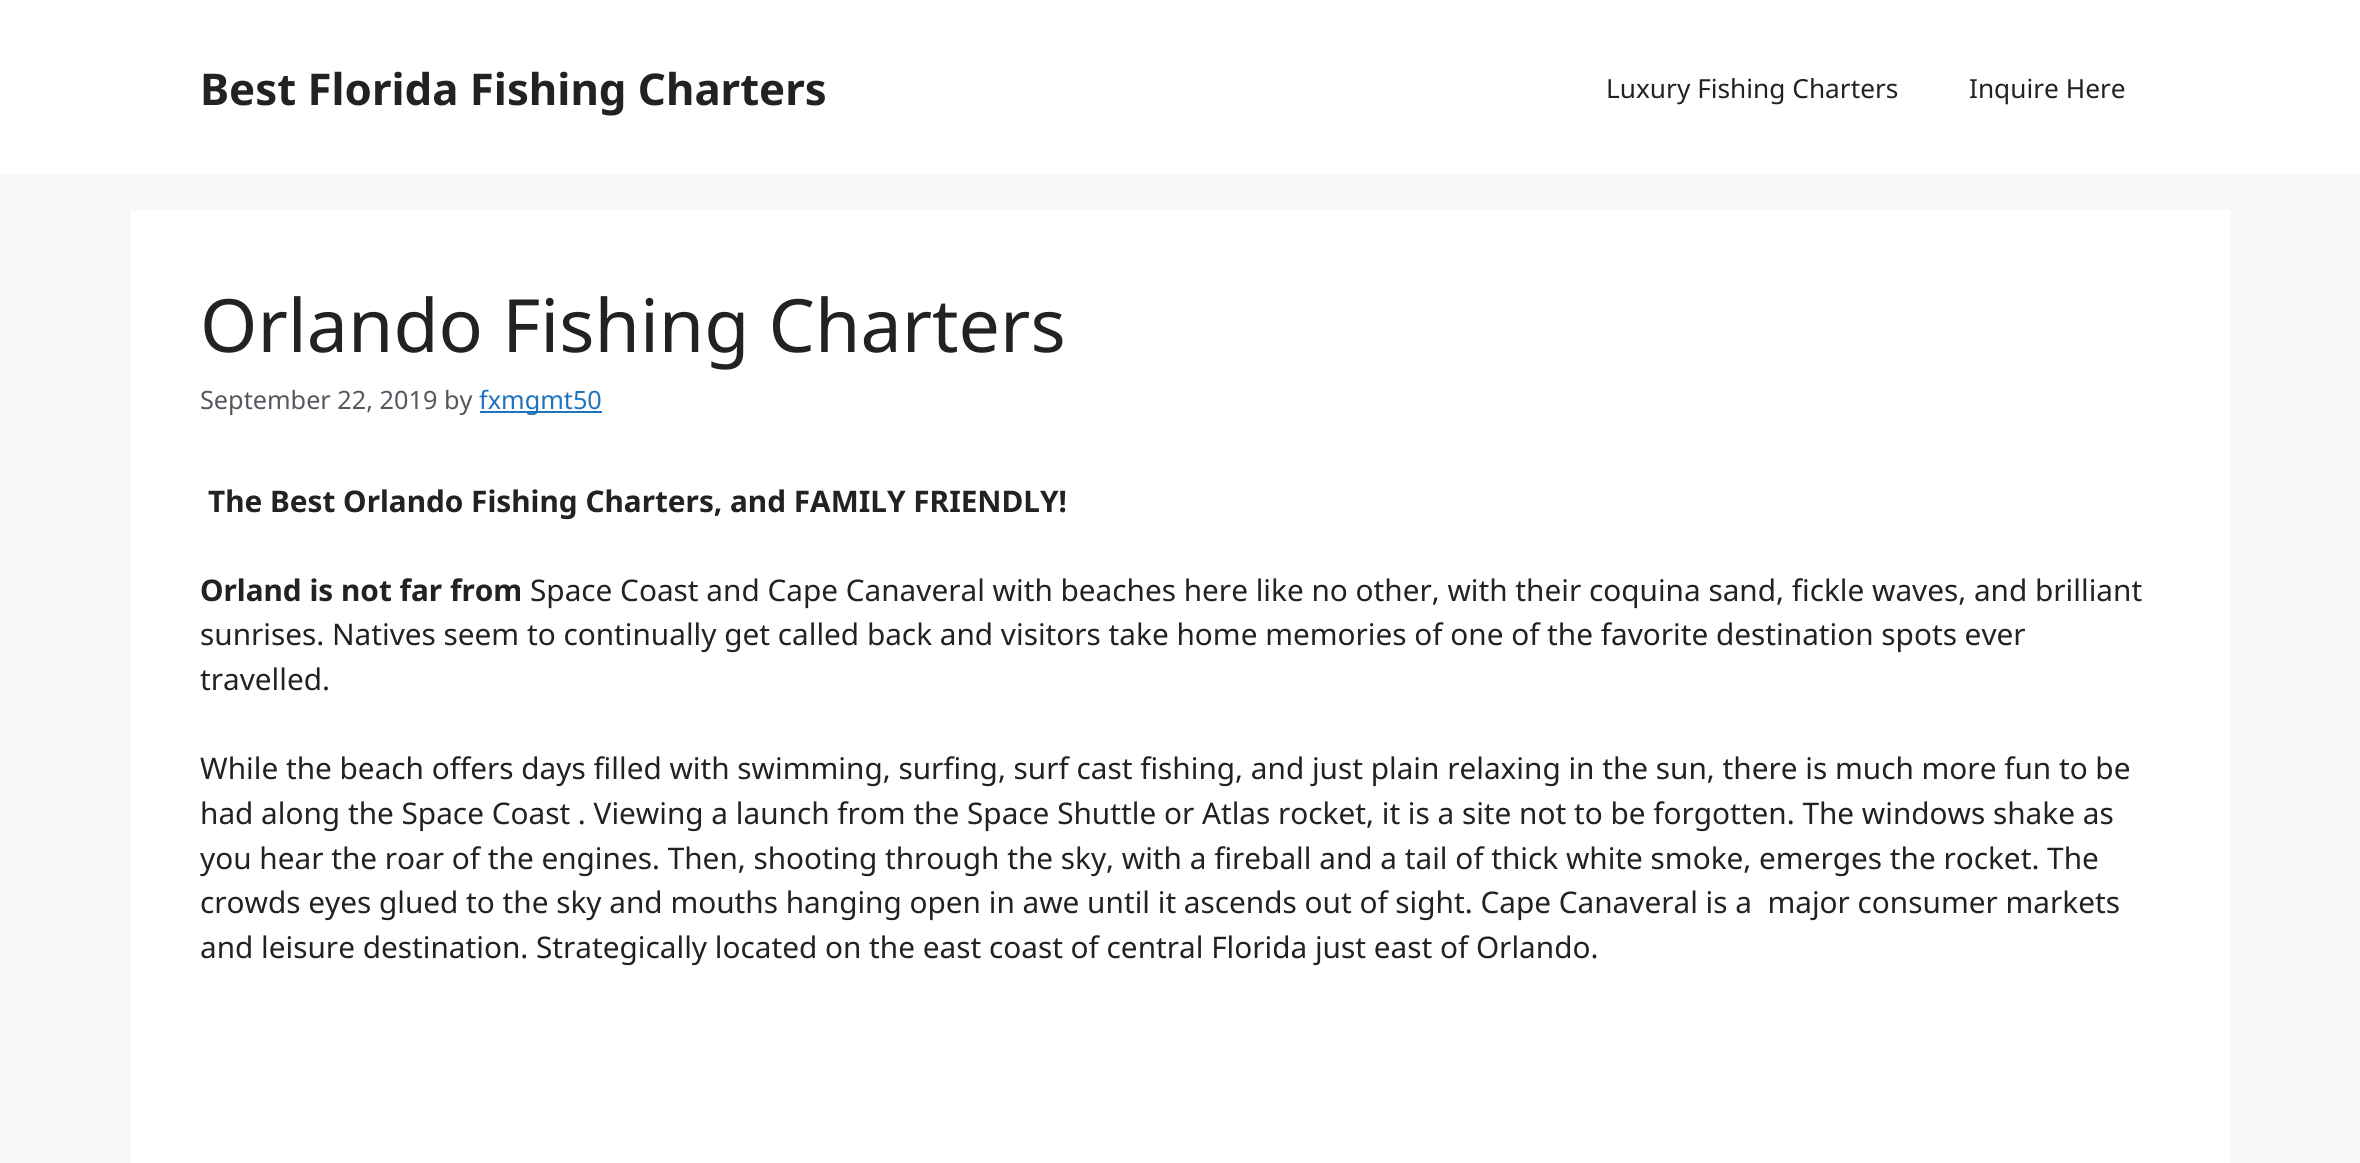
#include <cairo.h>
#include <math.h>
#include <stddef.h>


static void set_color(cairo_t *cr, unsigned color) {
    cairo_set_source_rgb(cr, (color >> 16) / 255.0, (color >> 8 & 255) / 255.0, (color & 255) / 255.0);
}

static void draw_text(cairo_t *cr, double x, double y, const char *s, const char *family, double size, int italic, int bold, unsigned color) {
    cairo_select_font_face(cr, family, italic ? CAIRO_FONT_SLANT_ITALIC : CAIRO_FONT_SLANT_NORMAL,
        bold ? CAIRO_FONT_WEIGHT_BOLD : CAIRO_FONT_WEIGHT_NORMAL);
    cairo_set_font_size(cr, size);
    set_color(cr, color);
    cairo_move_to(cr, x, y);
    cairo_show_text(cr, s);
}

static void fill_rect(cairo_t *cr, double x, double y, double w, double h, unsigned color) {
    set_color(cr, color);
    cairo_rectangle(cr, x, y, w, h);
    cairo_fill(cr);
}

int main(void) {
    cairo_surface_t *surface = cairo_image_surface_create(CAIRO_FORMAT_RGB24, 2360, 1163);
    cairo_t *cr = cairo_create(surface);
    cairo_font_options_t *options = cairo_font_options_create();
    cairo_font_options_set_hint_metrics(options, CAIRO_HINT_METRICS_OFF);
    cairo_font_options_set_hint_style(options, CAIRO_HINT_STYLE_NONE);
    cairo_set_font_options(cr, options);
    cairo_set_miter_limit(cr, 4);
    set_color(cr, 0xF7F8F9);
    cairo_paint(cr);
    fill_rect(cr, 0, 0, 2360, 175, 0xFFFFFF);
    draw_text(cr, 200, 105, "Best Florida Fishing Charters", "Noto Sans", 43.75, 0, 1, 0x222222);
    draw_text(cr, 1606, 98, "Luxury Fishing Charters", "Noto Sans", 26.25, 0, 0, 0x222222);
    draw_text(cr, 1969, 98, "Inquire Here", "Noto Sans", 26.25, 0, 0, 0x222222);
    fill_rect(cr, 131, 210, 2100, 953, 0xFFFFFF);
    draw_text(cr, 200, 352, "Orlando Fishing Charters", "Noto Sans", 73.5, 0, 0, 0x222222);
    draw_text(cr, 200, 409, "September 22, 2019 by", "Noto Sans", 25.25, 0, 0, 0x575760);
    fill_rect(cr, 480, 411, 122, 2, 0x1E73BE);
    draw_text(cr, 479, 409, "fxmgmt50", "Noto Sans", 25.25, 0, 0, 0x1E73BE);
    draw_text(cr, 208, 512, "The Best Orlando Fishing Charters, and FAMILY FRIENDLY!", "Noto Sans", 29.75, 0, 1, 0x222222);
    draw_text(cr, 200, 601, "Orland is not far from", "Noto Sans", 29.75, 0, 1, 0x222222);
    draw_text(cr, 530, 601, "Space Coast and Cape Canaveral with beaches here like no other, with their coquina sand, fickle waves, and brilliant", "Noto Sans", 29.75, 0, 0, 0x222222);
    draw_text(cr, 200, 645, "sunrises. Natives seem to continually get called back and visitors take home memories of one of the favorite destination spots ever", "Noto Sans", 29.75, 0, 0, 0x222222);
    draw_text(cr, 200, 690, "travelled.", "Noto Sans", 29.75, 0, 0, 0x222222);
    draw_text(cr, 200, 779, "While the beach offers days filled with swimming, surfing, surf cast fishing, and just plain relaxing in the sun, there is much more fun to be", "Noto Sans", 29.75, 0, 0, 0x222222);
    draw_text(cr, 200, 824, "had along the Space Coast . Viewing a launch from the Space Shuttle or Atlas rocket, it is a site not to be forgotten. The windows shake as", "Noto Sans", 29.75, 0, 0, 0x222222);
    draw_text(cr, 200, 869, "you hear the roar of the engines. Then, shooting through the sky, with a fireball and a tail of thick white smoke, emerges the rocket. The", "Noto Sans", 29.75, 0, 0, 0x222222);
    draw_text(cr, 200, 913, "crowds eyes glued to the sky and mouths hanging open in awe until it ascends out of sight. Cape Canaveral is a  major consumer markets", "Noto Sans", 29.75, 0, 0, 0x222222);
    draw_text(cr, 200, 958, "and leisure destination. Strategically located on the east coast of central Florida just east of Orlando.", "Noto Sans", 29.75, 0, 0, 0x222222);
    cairo_surface_write_to_png(surface, "output.png");
    cairo_font_options_destroy(options);
    cairo_destroy(cr);
    cairo_surface_destroy(surface);
    return 0;
}
